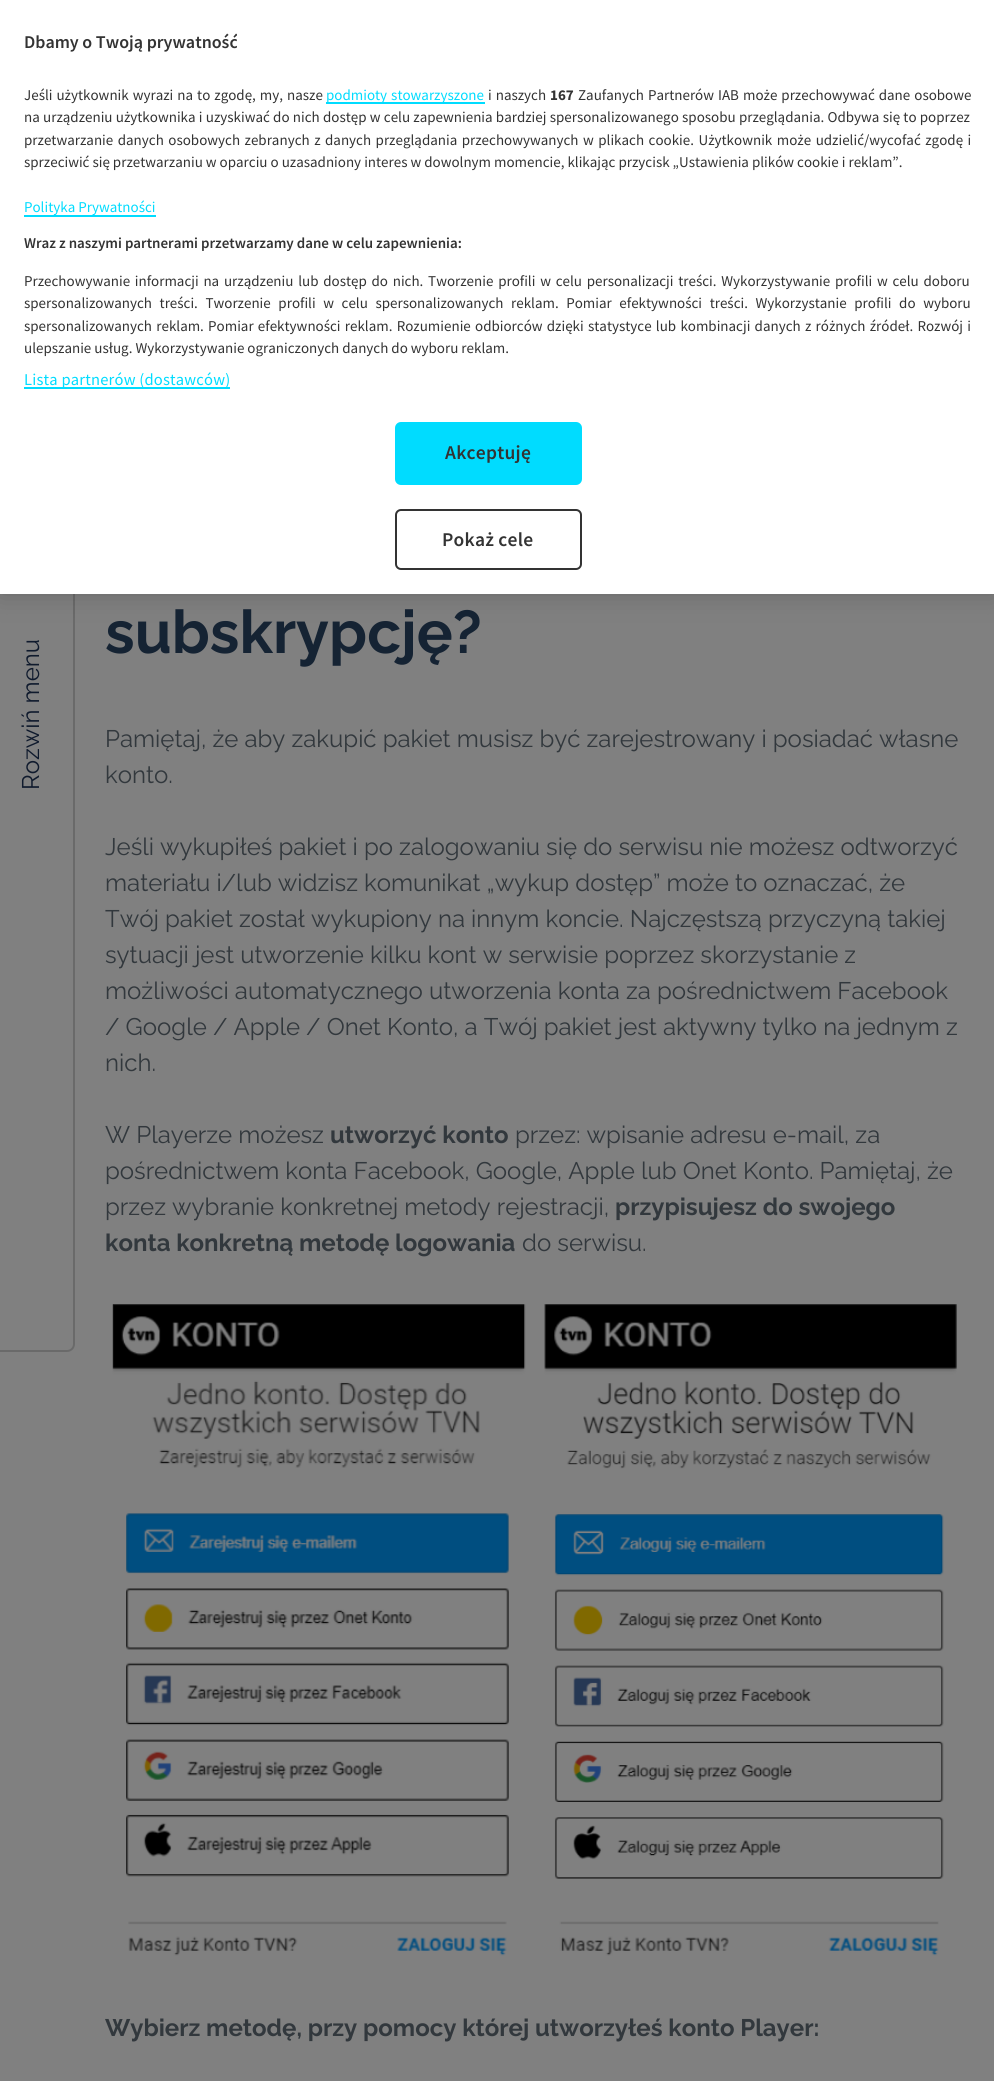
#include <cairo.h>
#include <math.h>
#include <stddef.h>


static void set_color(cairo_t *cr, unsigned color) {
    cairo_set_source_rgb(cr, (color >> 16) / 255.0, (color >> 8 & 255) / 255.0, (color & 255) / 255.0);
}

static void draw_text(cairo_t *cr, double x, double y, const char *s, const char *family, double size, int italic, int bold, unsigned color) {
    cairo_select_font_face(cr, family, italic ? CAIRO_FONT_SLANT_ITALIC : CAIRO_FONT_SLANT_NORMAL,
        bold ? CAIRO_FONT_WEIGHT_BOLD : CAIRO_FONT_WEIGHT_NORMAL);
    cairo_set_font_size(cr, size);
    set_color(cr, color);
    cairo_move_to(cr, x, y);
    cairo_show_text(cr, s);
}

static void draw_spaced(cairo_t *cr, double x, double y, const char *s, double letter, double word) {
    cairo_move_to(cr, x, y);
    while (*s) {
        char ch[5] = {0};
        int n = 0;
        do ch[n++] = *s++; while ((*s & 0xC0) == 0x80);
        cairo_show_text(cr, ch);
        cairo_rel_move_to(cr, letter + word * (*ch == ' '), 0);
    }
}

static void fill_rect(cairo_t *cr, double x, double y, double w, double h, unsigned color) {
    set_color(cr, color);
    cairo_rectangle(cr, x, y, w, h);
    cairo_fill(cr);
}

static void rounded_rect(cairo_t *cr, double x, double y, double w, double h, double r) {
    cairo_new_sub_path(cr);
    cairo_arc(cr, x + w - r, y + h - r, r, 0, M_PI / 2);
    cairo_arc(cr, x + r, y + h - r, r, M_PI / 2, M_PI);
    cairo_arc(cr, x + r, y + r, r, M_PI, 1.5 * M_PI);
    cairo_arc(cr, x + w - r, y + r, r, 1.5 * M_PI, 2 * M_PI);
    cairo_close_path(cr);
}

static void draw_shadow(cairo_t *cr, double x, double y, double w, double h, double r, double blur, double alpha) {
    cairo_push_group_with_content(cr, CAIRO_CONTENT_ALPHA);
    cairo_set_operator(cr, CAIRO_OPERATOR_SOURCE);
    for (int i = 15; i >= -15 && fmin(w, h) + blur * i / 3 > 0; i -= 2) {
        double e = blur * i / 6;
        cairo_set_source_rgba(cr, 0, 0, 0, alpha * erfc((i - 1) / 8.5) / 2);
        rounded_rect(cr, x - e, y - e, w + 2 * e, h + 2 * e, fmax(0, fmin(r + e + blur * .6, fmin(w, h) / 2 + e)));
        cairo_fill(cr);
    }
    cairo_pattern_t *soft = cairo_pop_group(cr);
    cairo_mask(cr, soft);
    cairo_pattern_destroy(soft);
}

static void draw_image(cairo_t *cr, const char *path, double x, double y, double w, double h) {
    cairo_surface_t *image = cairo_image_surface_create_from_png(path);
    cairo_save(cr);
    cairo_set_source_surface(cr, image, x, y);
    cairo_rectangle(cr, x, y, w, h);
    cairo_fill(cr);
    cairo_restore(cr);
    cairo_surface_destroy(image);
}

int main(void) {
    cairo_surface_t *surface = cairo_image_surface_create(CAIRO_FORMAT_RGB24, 994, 2081);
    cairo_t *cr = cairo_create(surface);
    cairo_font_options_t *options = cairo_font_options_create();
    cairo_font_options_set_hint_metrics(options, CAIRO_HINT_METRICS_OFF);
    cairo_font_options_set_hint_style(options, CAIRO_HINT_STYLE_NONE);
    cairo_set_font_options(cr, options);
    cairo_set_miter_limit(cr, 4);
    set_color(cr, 0x808080);
    cairo_paint(cr);
    rounded_rect(cr, -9, 453, 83, 898, 7);
    set_color(cr, 0x6A6A6A);
    cairo_stroke(cr);
    set_color(cr, 0x000000);
    draw_shadow(cr, 0, 0, 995, 594, 0, 13.5, 0.2);
    fill_rect(cr, 0, 0, 994, 594, 0xFFFFFF);
    draw_text(cr, 24, 48, "Dbamy o Twoją prywatność", "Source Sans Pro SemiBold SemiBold", 18, 0, 0, 0x333333);
    cairo_select_font_face(cr, "Source Sans Pro", CAIRO_FONT_SLANT_NORMAL, CAIRO_FONT_WEIGHT_NORMAL);
    cairo_set_font_size(cr, 15);
    draw_spaced(cr, 24, 100, "Jeśli użytkownik wyrazi na to zgodę, my, nasze", 0, 1);
    fill_rect(cr, 326, 102, 159, 2, 0x00DCFF);
    draw_spaced(cr, 326, 100, "podmioty stowarzyszone", 0, 1);
    set_color(cr, 0x333333);
    draw_spaced(cr, 488, 100, "i naszych", 0, 1);
    draw_text(cr, 550, 100, "167", "Source Sans Pro", 15, 0, 1, 0x333333);
    cairo_select_font_face(cr, "Source Sans Pro", CAIRO_FONT_SLANT_NORMAL, CAIRO_FONT_WEIGHT_NORMAL);
    draw_spaced(cr, 578, 100, "Zaufanych Partnerów IAB może przechowywać dane osobowe", 0, 1);
    draw_spaced(cr, 24, 122, "na urządzeniu użytkownika i uzyskiwać do nich dostęp w celu zapewnienia bardziej spersonalizowanego sposobu przeglądania. Odbywa się to poprzez", 0, 0.25);
    draw_spaced(cr, 24, 145, "przetwarzanie danych osobowych zebranych z danych przeglądania przechowywanych w plikach cookie. Użytkownik może udzielić/wycofać zgodę i", 0, 1.5);
    draw_text(cr, 24, 167, "sprzeciwić się przetwarzaniu w oparciu o uzasadniony interes w dowolnym momencie, klikając przycisk „Ustawienia plików cookie i reklam”.", "Source Sans Pro", 15, 0, 0, 0x333333);
    fill_rect(cr, 24, 215, 132, 2, 0x00DCFF);
    draw_text(cr, 24, 212, "Polityka Prywatności", "Source Sans Pro", 15, 0, 0, 0x00DCFF);
    draw_text(cr, 24, 248, "Wraz z naszymi partnerami przetwarzamy dane w celu zapewnienia:", "Source Sans Pro SemiBold SemiBold", 15, 0, 0, 0x333333);
    cairo_select_font_face(cr, "Source Sans Pro", CAIRO_FONT_SLANT_NORMAL, CAIRO_FONT_WEIGHT_NORMAL);
    draw_spaced(cr, 24, 286, "Przechowywanie informacji na urządzeniu lub dostęp do nich. Tworzenie profili w celu personalizacji treści. Wykorzystywanie profili w celu doboru", 0, 1.75);
    draw_spaced(cr, 24, 308, "spersonalizowanych treści. Tworzenie profili w celu spersonalizowanych reklam. Pomiar efektywności treści. Wykorzystanie profili do wyboru", 0, 4.6);
    draw_spaced(cr, 24, 331, "spersonalizowanych reklam. Pomiar efektywności reklam. Rozumienie odbiorców dzięki statystyce lub kombinacji danych z różnych źródeł. Rozwój i", 0, 1.25);
    draw_text(cr, 24, 353, "ulepszanie usług. Wykorzystywanie ograniczonych danych do wyboru reklam.", "Source Sans Pro", 15, 0, 0, 0x333333);
    fill_rect(cr, 24, 387, 206, 2, 0x00DCFF);
    cairo_set_font_size(cr, 16.5);
    draw_spaced(cr, 24, 385, "Lista partnerów (dostawców)", 0.2, 0);
    rounded_rect(cr, 396, 423, 185, 61, 5);
    cairo_fill_preserve(cr);
    cairo_stroke(cr);
    cairo_select_font_face(cr, "Source Sans Pro SemiBold SemiBold", CAIRO_FONT_SLANT_NORMAL, CAIRO_FONT_WEIGHT_NORMAL);
    cairo_set_font_size(cr, 19.5);
    set_color(cr, 0x333333);
    draw_spaced(cr, 445, 459, "Akceptuję", 0.25, 0);
    rounded_rect(cr, 396, 510, 185, 59, 5);
    cairo_stroke(cr);
    draw_spaced(cr, 442, 546, "Pokaż cele", 0.25, 0);
    cairo_save(cr);
    cairo_translate(cr, 39, 790);
    cairo_rotate(cr, -90 * M_PI / 180);
    draw_text(cr, 0, 0, "Rozwiń menu", "Raleway", 24, 0, 0, 0x0F1A2D);
    cairo_restore(cr);
    draw_text(cr, 105, 653, "subskrypcję?", "Raleway", 60, 0, 1, 0x152333);
    draw_text(cr, 105, 747, "Pamiętaj, że aby zakupić pakiet musisz być zarejestrowany i posiadać własne", "Raleway", 24, 0, 0, 0x32383D);
    draw_text(cr, 105, 783, "konto.", "Raleway", 24, 0, 0, 0x32383D);
    draw_text(cr, 105, 855, "Jeśli wykupiłeś pakiet i po zalogowaniu się do serwisu nie możesz odtworzyć", "Raleway", 24, 0, 0, 0x32383D);
    draw_text(cr, 105, 891, "materiału i/lub widzisz komunikat „wykup dostęp” może to oznaczać, że", "Raleway", 24, 0, 0, 0x32383D);
    draw_text(cr, 105, 927, "Twój pakiet został wykupiony na innym koncie. Najczęstszą przyczyną takiej", "Raleway", 24, 0, 0, 0x32383D);
    draw_text(cr, 105, 963, "sytuacji jest utworzenie kilku kont w serwisie poprzez skorzystanie z", "Raleway", 24, 0, 0, 0x32383D);
    draw_text(cr, 105, 999, "możliwości automatycznego utworzenia konta za pośrednictwem Facebook", "Raleway", 24, 0, 0, 0x32383D);
    draw_text(cr, 105, 1035, "/ Google / Apple / Onet Konto, a Twój pakiet jest aktywny tylko na jednym z", "Raleway", 24, 0, 0, 0x32383D);
    draw_text(cr, 105, 1071, "nich.", "Raleway", 24, 0, 0, 0x32383D);
    draw_text(cr, 105, 1143, "W Playerze możesz", "Raleway", 24, 0, 0, 0x32383D);
    draw_text(cr, 330, 1143, "utworzyć konto", "Raleway", 24, 0, 1, 0x32383D);
    draw_text(cr, 515, 1143, "przez: wpisanie adresu e-mail, za", "Raleway", 24, 0, 0, 0x32383D);
    draw_text(cr, 105, 1179, "pośrednictwem konta Facebook, Google, Apple lub Onet Konto. Pamiętaj, że", "Raleway", 24, 0, 0, 0x32383D);
    draw_text(cr, 105, 1215, "przez wybranie konkretnej metody rejestracji,", "Raleway", 24, 0, 0, 0x32383D);
    draw_text(cr, 615, 1215, "przypisujesz do swojego", "Raleway", 24, 0, 1, 0x32383D);
    draw_text(cr, 105, 1251, "konta konkretną", "Raleway", 24, 0, 1, 0x32383D);
    draw_text(cr, 299, 1251, "metodę logowania", "Raleway", 24, 0, 1, 0x32383D);
    draw_text(cr, 522, 1251, "do serwisu.", "Raleway", 24, 0, 0, 0x32383D);
    draw_image(cr, "assets/img1.png", 112, 1304, 845, 652);
    draw_text(cr, 105, 2036, "Wybierz metodę, przy pomocy której utworzyłeś konto Player:", "Raleway", 24, 0, 1, 0x32383D);
    cairo_surface_write_to_png(surface, "output.png");
    cairo_font_options_destroy(options);
    cairo_destroy(cr);
    cairo_surface_destroy(surface);
    return 0;
}
